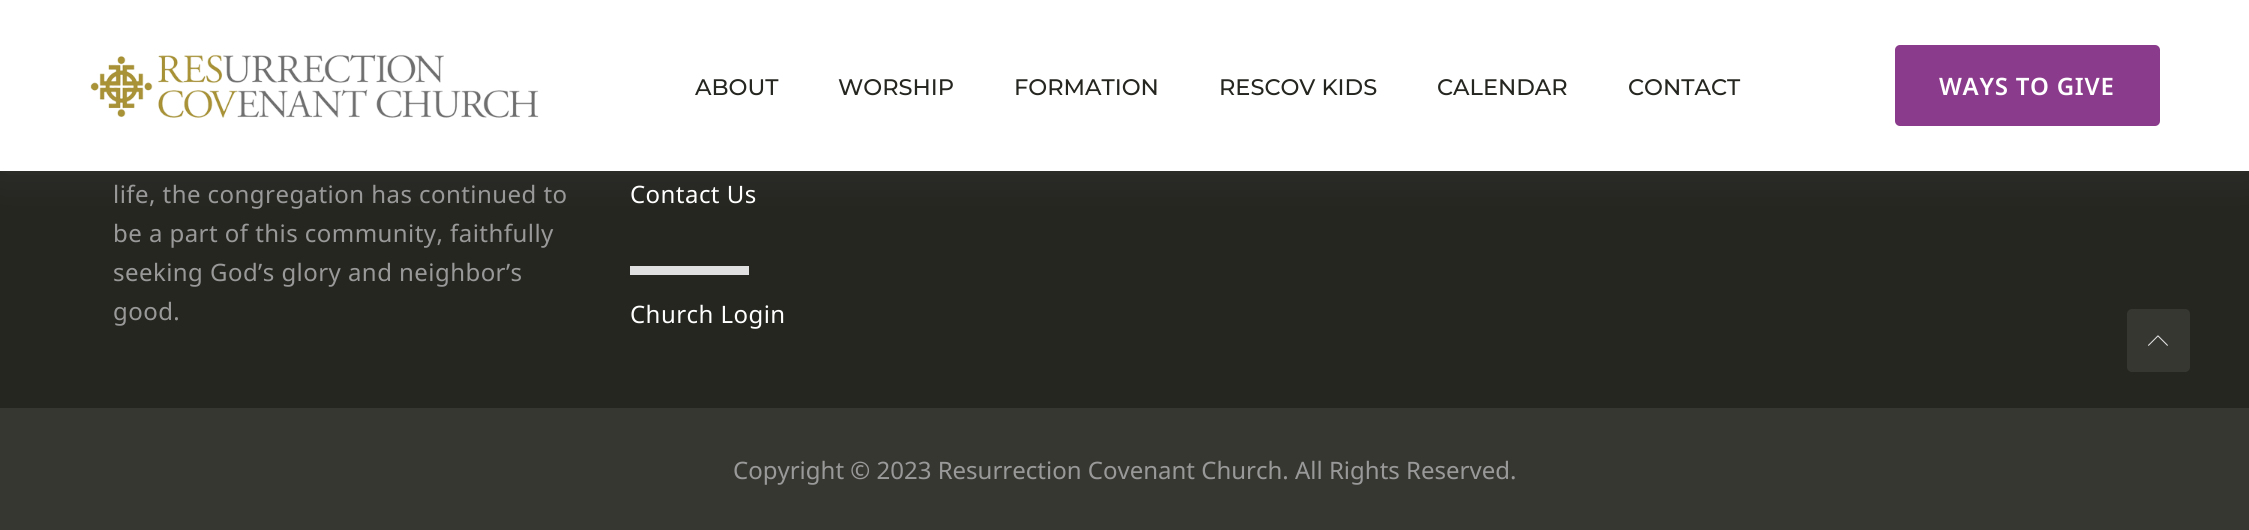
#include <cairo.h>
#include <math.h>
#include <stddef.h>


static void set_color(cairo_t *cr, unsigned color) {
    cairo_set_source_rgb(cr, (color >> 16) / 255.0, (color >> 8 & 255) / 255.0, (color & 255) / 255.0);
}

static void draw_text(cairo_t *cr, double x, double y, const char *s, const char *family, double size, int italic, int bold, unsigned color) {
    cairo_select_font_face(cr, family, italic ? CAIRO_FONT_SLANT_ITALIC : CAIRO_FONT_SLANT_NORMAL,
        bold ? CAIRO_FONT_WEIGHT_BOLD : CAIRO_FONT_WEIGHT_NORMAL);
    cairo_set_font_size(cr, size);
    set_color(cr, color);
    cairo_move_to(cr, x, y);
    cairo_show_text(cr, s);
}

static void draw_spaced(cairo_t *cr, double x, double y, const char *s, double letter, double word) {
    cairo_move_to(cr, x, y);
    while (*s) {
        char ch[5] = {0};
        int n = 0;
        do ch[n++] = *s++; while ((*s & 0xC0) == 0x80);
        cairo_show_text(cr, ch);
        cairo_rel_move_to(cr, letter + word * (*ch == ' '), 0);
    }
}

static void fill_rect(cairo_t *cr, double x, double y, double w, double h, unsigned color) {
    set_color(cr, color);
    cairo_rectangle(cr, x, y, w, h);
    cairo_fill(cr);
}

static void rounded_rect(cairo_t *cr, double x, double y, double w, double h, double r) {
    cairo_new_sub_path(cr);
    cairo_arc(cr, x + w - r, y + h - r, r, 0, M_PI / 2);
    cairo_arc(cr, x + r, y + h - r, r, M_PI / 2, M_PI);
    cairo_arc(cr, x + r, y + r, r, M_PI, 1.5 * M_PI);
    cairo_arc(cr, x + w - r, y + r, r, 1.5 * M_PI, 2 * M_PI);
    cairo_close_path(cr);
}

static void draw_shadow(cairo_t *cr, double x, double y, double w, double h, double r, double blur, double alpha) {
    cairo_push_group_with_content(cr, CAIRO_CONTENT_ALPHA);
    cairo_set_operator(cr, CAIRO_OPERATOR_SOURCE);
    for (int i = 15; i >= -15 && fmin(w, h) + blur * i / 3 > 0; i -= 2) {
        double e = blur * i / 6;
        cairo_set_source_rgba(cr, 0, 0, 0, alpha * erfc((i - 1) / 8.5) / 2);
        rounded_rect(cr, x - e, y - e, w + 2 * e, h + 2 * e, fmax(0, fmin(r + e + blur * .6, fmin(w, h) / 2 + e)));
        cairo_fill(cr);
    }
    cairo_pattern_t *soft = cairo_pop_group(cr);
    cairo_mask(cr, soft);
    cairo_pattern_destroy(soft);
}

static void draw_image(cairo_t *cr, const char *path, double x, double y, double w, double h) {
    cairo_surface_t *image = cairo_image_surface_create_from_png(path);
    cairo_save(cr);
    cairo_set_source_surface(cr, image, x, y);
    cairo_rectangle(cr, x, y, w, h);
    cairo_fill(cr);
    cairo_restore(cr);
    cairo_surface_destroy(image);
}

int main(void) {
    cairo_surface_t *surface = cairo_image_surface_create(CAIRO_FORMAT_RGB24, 2249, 530);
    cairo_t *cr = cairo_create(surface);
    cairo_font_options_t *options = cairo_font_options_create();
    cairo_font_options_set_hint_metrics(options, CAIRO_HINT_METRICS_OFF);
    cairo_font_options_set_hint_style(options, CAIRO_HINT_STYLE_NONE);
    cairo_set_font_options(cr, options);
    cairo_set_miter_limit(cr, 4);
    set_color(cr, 0x262621);
    cairo_paint(cr);
    set_color(cr, 0x4E5263);
    draw_shadow(cr, 0, -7, 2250, 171, 0, 22.5, 0.3);
    fill_rect(cr, 0, 0, 2249, 171, 0xFFFFFF);
    draw_image(cr, "assets/img1.png", 90, 54, 449, 64);
    draw_text(cr, 695, 95, "ABOUT", "Montserrat Medium", 22.5, 0, 0, 0x262621);
    draw_text(cr, 838, 95, "WORSHIP", "Montserrat Medium", 22.5, 0, 0, 0x262621);
    draw_text(cr, 1014, 95, "FORMATION", "Montserrat Medium", 22.5, 0, 0, 0x262621);
    draw_text(cr, 1219, 95, "RESCOV KIDS", "Montserrat Medium", 22.5, 0, 0, 0x262621);
    draw_text(cr, 1437, 95, "CALENDAR", "Montserrat Medium", 22.5, 0, 0, 0x262621);
    draw_text(cr, 1628, 95, "CONTACT", "Montserrat Medium", 22.5, 0, 0, 0x262621);
    set_color(cr, 0x8B3B8B);
    rounded_rect(cr, 1895, 45, 265, 81, 5);
    cairo_fill(cr);
    cairo_select_font_face(cr, "Noto Sans SemiBold", CAIRO_FONT_SLANT_NORMAL, CAIRO_FONT_WEIGHT_NORMAL);
    cairo_set_font_size(cr, 24);
    set_color(cr, 0xFFFFFF);
    draw_spaced(cr, 1939, 95, "WAYS TO GIVE", 0.75, 0);
    cairo_select_font_face(cr, "Noto Sans", CAIRO_FONT_SLANT_NORMAL, CAIRO_FONT_WEIGHT_NORMAL);
    set_color(cr, 0x999999);
    draw_spaced(cr, 113, 203, "life, the congregation has continued to", 0.45, 0);
    draw_spaced(cr, 113, 242, "be a part of this community, faithfully", 0.45, 0);
    draw_spaced(cr, 113, 281, "seeking God’s glory and neighbor’s", 0.45, 0);
    draw_spaced(cr, 113, 320, "good.", 0.45, 0);
    set_color(cr, 0xFFFFFF);
    draw_spaced(cr, 630, 203, "Contact Us", 0.45, 0);
    fill_rect(cr, 630, 266, 119, 9, 0xE0E0E0);
    set_color(cr, 0xFFFFFF);
    draw_spaced(cr, 630, 323, "Church Login", 0.45, 0);
    fill_rect(cr, 0, 408, 2249, 122, 0x373732);
    draw_text(cr, 733, 479, "Copyright © 2023 Resurrection Covenant Church. All Rights Reserved.", "Noto Sans", 24, 0, 0, 0x999999);
    set_color(cr, 0x373732);
    rounded_rect(cr, 2127, 309, 63, 63, 5);
    cairo_fill(cr);
    draw_image(cr, "assets/img2.png", 2148, 335, 20, 11);
    cairo_surface_write_to_png(surface, "output.png");
    cairo_font_options_destroy(options);
    cairo_destroy(cr);
    cairo_surface_destroy(surface);
    return 0;
}
